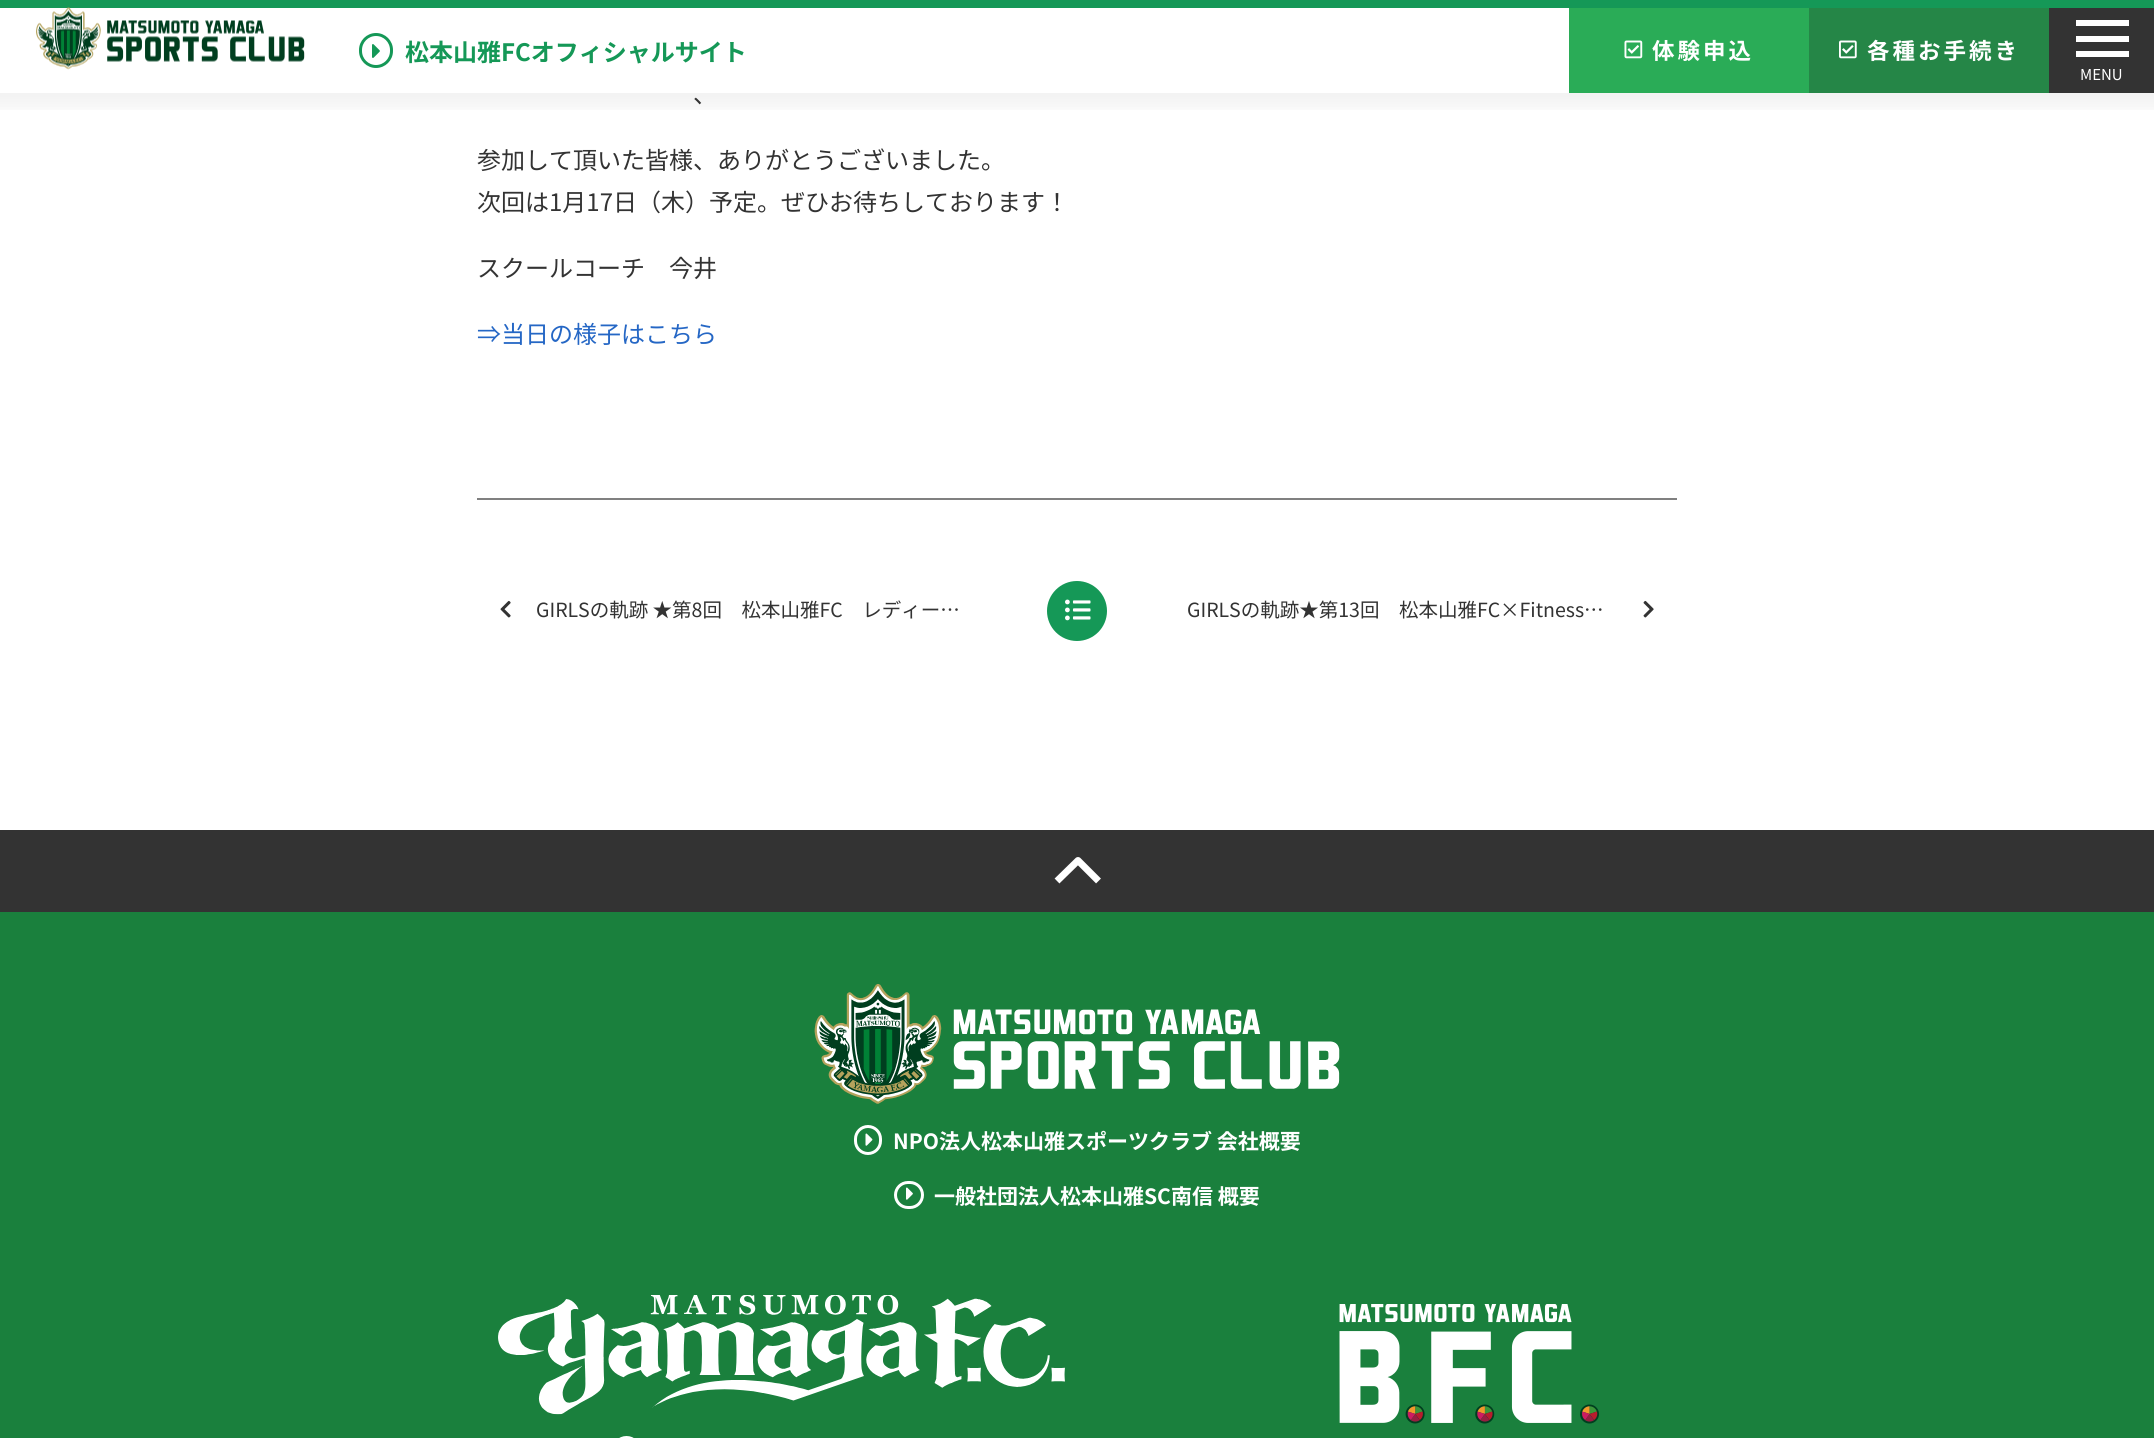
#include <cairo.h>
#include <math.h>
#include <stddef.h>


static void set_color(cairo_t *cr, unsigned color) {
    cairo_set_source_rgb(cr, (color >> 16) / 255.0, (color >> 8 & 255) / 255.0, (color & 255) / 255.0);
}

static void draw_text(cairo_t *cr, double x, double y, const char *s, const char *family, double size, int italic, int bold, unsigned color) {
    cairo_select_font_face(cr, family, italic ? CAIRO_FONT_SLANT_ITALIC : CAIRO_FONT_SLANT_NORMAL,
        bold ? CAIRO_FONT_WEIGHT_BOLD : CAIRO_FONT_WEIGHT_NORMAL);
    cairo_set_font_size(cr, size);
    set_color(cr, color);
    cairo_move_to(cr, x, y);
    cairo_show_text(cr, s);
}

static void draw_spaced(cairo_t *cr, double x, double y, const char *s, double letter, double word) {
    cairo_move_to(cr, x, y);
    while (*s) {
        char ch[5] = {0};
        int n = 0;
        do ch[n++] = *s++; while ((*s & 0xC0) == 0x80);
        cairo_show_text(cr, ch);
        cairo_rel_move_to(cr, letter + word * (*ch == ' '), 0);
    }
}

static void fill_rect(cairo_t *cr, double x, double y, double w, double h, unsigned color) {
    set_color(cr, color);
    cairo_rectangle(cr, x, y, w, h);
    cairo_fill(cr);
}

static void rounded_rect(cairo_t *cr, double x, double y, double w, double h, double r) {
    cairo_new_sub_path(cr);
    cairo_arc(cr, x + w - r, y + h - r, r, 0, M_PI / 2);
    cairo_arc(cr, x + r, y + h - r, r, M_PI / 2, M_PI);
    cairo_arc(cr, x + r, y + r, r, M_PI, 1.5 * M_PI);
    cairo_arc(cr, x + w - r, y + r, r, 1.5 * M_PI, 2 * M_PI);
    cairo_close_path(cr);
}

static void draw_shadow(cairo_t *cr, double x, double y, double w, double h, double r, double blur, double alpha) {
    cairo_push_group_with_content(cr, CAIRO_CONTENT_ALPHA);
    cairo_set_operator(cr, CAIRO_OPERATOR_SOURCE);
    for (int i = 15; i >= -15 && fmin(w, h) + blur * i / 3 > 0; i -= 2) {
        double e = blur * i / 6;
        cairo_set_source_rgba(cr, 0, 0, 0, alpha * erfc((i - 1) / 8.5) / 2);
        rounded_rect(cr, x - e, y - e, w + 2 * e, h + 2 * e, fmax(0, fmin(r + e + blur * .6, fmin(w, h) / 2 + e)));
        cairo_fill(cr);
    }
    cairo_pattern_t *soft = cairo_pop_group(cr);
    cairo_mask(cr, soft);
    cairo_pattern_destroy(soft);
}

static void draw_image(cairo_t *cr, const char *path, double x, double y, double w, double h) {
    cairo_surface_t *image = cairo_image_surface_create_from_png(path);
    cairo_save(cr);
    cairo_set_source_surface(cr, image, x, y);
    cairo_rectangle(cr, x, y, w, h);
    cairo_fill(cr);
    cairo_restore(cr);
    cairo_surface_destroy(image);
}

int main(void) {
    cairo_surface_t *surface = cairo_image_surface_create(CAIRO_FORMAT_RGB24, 2154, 1438);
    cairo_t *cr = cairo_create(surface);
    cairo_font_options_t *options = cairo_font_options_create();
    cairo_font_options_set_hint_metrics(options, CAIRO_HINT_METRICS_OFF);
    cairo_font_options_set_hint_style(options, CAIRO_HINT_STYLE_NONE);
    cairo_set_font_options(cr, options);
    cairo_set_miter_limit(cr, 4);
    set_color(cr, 0xFFFFFF);
    cairo_paint(cr);
    cairo_save(cr);
    cairo_rectangle(cr, 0, 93, 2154, 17);
    cairo_clip(cr);
    set_color(cr, 0x000000);
    draw_shadow(cr, -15, -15, 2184, 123, 0, 7.5, 0.05);
    cairo_restore(cr);
    fill_rect(cr, 0, 0, 2154, 8, 0x159857);
    draw_image(cr, "assets/img1.png", 36, 7, 269, 63);
    rounded_rect(cr, 360.5, 34.5, 31, 32, 15.5);
    cairo_set_line_width(cr, 3);
    cairo_stroke(cr);
    draw_image(cr, "assets/img2.png", 372, 44, 8, 14);
    draw_text(cr, 405, 61, "松本山雅FCオフィシャルサイト", "Noto Sans JP", 24, 0, 1, 0x159857);
    cairo_set_source_rgba(cr, 0.125, 0.659, 0.31, 0.95);
    cairo_rectangle(cr, 1569, 8, 240, 85);
    cairo_fill(cr);
    draw_image(cr, "assets/img3.png", 1624, 40, 19, 19);
    cairo_set_font_size(cr, 22.5);
    set_color(cr, 0xFFFFFF);
    draw_spaced(cr, 1652, 59, "体験申込", 3, 0);
    fill_rect(cr, 1809, 8, 240, 85, 0x258647);
    draw_image(cr, "assets/img4.png", 1839, 40, 18, 19);
    set_color(cr, 0xFFFFFF);
    draw_spaced(cr, 1867, 59, "各種お手続き", 3, 0);
    fill_rect(cr, 2049, 8, 105, 85, 0x333333);
    fill_rect(cr, 2076, 20, 53, 6, 0xFFFFFF);
    fill_rect(cr, 2076, 36, 53, 6, 0xFFFFFF);
    fill_rect(cr, 2076, 51, 53, 6, 0xFFFFFF);
    draw_text(cr, 2080, 80, "MENU", "Noto Sans JP", 15, 0, 0, 0xFFFFFF);
    draw_text(cr, 693, 103, "、", "Noto Sans JP", 24, 0, 0, 0x333333);
    draw_text(cr, 477, 169, "参加して頂いた皆様、ありがとうございました。", "Noto Sans JP", 24, 0, 0, 0x333333);
    draw_text(cr, 477, 211, "次回は1月17日（木）予定。ぜひお待ちしております！", "Noto Sans JP", 24, 0, 0, 0x333333);
    draw_text(cr, 477, 277, "スクールコーチ　今井", "Noto Sans JP", 24, 0, 0, 0x333333);
    draw_text(cr, 477, 343, "⇒当日の様子はこちら", "Noto Sans JP", 24, 0, 0, 0x2567C5);
    fill_rect(cr, 477, 498, 1200, 2, 0x808080);
    draw_image(cr, "assets/img5.png", 500, 600, 11, 18);
    draw_text(cr, 536, 617, "GIRLSの軌跡 ★第8回　松本山雅FC　レディー…", "Noto Sans JP", 19.5, 0, 0, 0x333333);
    set_color(cr, 0x159857);
    cairo_new_path(cr);
    cairo_arc(cr, 1077, 611, 30, 0, 2 * M_PI);
    cairo_fill(cr);
    draw_image(cr, "assets/img6.png", 1065, 599, 26, 22);
    draw_text(cr, 1187, 617, "GIRLSの軌跡★第13回　松本山雅FC×Fitness…", "Noto Sans JP", 19.5, 0, 0, 0x333333);
    draw_image(cr, "assets/img7.png", 1643, 600, 11, 18);
    fill_rect(cr, 0, 912, 2154, 526, 0x1A803D);
    fill_rect(cr, 0, 830, 2154, 82, 0x333333);
    cairo_new_path(cr);
    cairo_move_to(cr, 1098.5, 881);
    cairo_line_to(cr, 1078, 860.5);
    cairo_line_to(cr, 1057, 881);
    set_color(cr, 0xFFFFFF);
    cairo_set_line_width(cr, 6.9);
    cairo_set_line_join(cr, CAIRO_LINE_JOIN_ROUND);
    cairo_stroke(cr);
    draw_image(cr, "assets/img8.png", 814, 984, 526, 120);
    rounded_rect(cr, 855.5, 1126.5, 25, 27, 12.5);
    cairo_set_line_width(cr, 3);
    cairo_set_line_join(cr, CAIRO_LINE_JOIN_MITER);
    cairo_stroke(cr);
    draw_image(cr, "assets/img9.png", 865, 1133, 8, 13);
    draw_text(cr, 893, 1149, "NPO法人松本山雅スポーツクラブ 会社概要", "Noto Sans JP", 21, 0, 1, 0xFFFFFF);
    rounded_rect(cr, 895.5, 1182.5, 27, 25, 12.5);
    cairo_stroke(cr);
    draw_image(cr, "assets/img10.png", 906, 1187, 7, 13);
    draw_text(cr, 934, 1204, "一般社団法人松本山雅SC南信 概要", "Noto Sans JP", 21, 0, 1, 0xFFFFFF);
    draw_image(cr, "assets/img11.png", 498, 1295, 567, 120);
    rounded_rect(cr, 613.5, 1437.5, 26, 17, 13);
    cairo_stroke(cr);
    draw_image(cr, "assets/img12.png", 1339, 1304, 260, 120);
    cairo_surface_write_to_png(surface, "output.png");
    cairo_font_options_destroy(options);
    cairo_destroy(cr);
    cairo_surface_destroy(surface);
    return 0;
}
